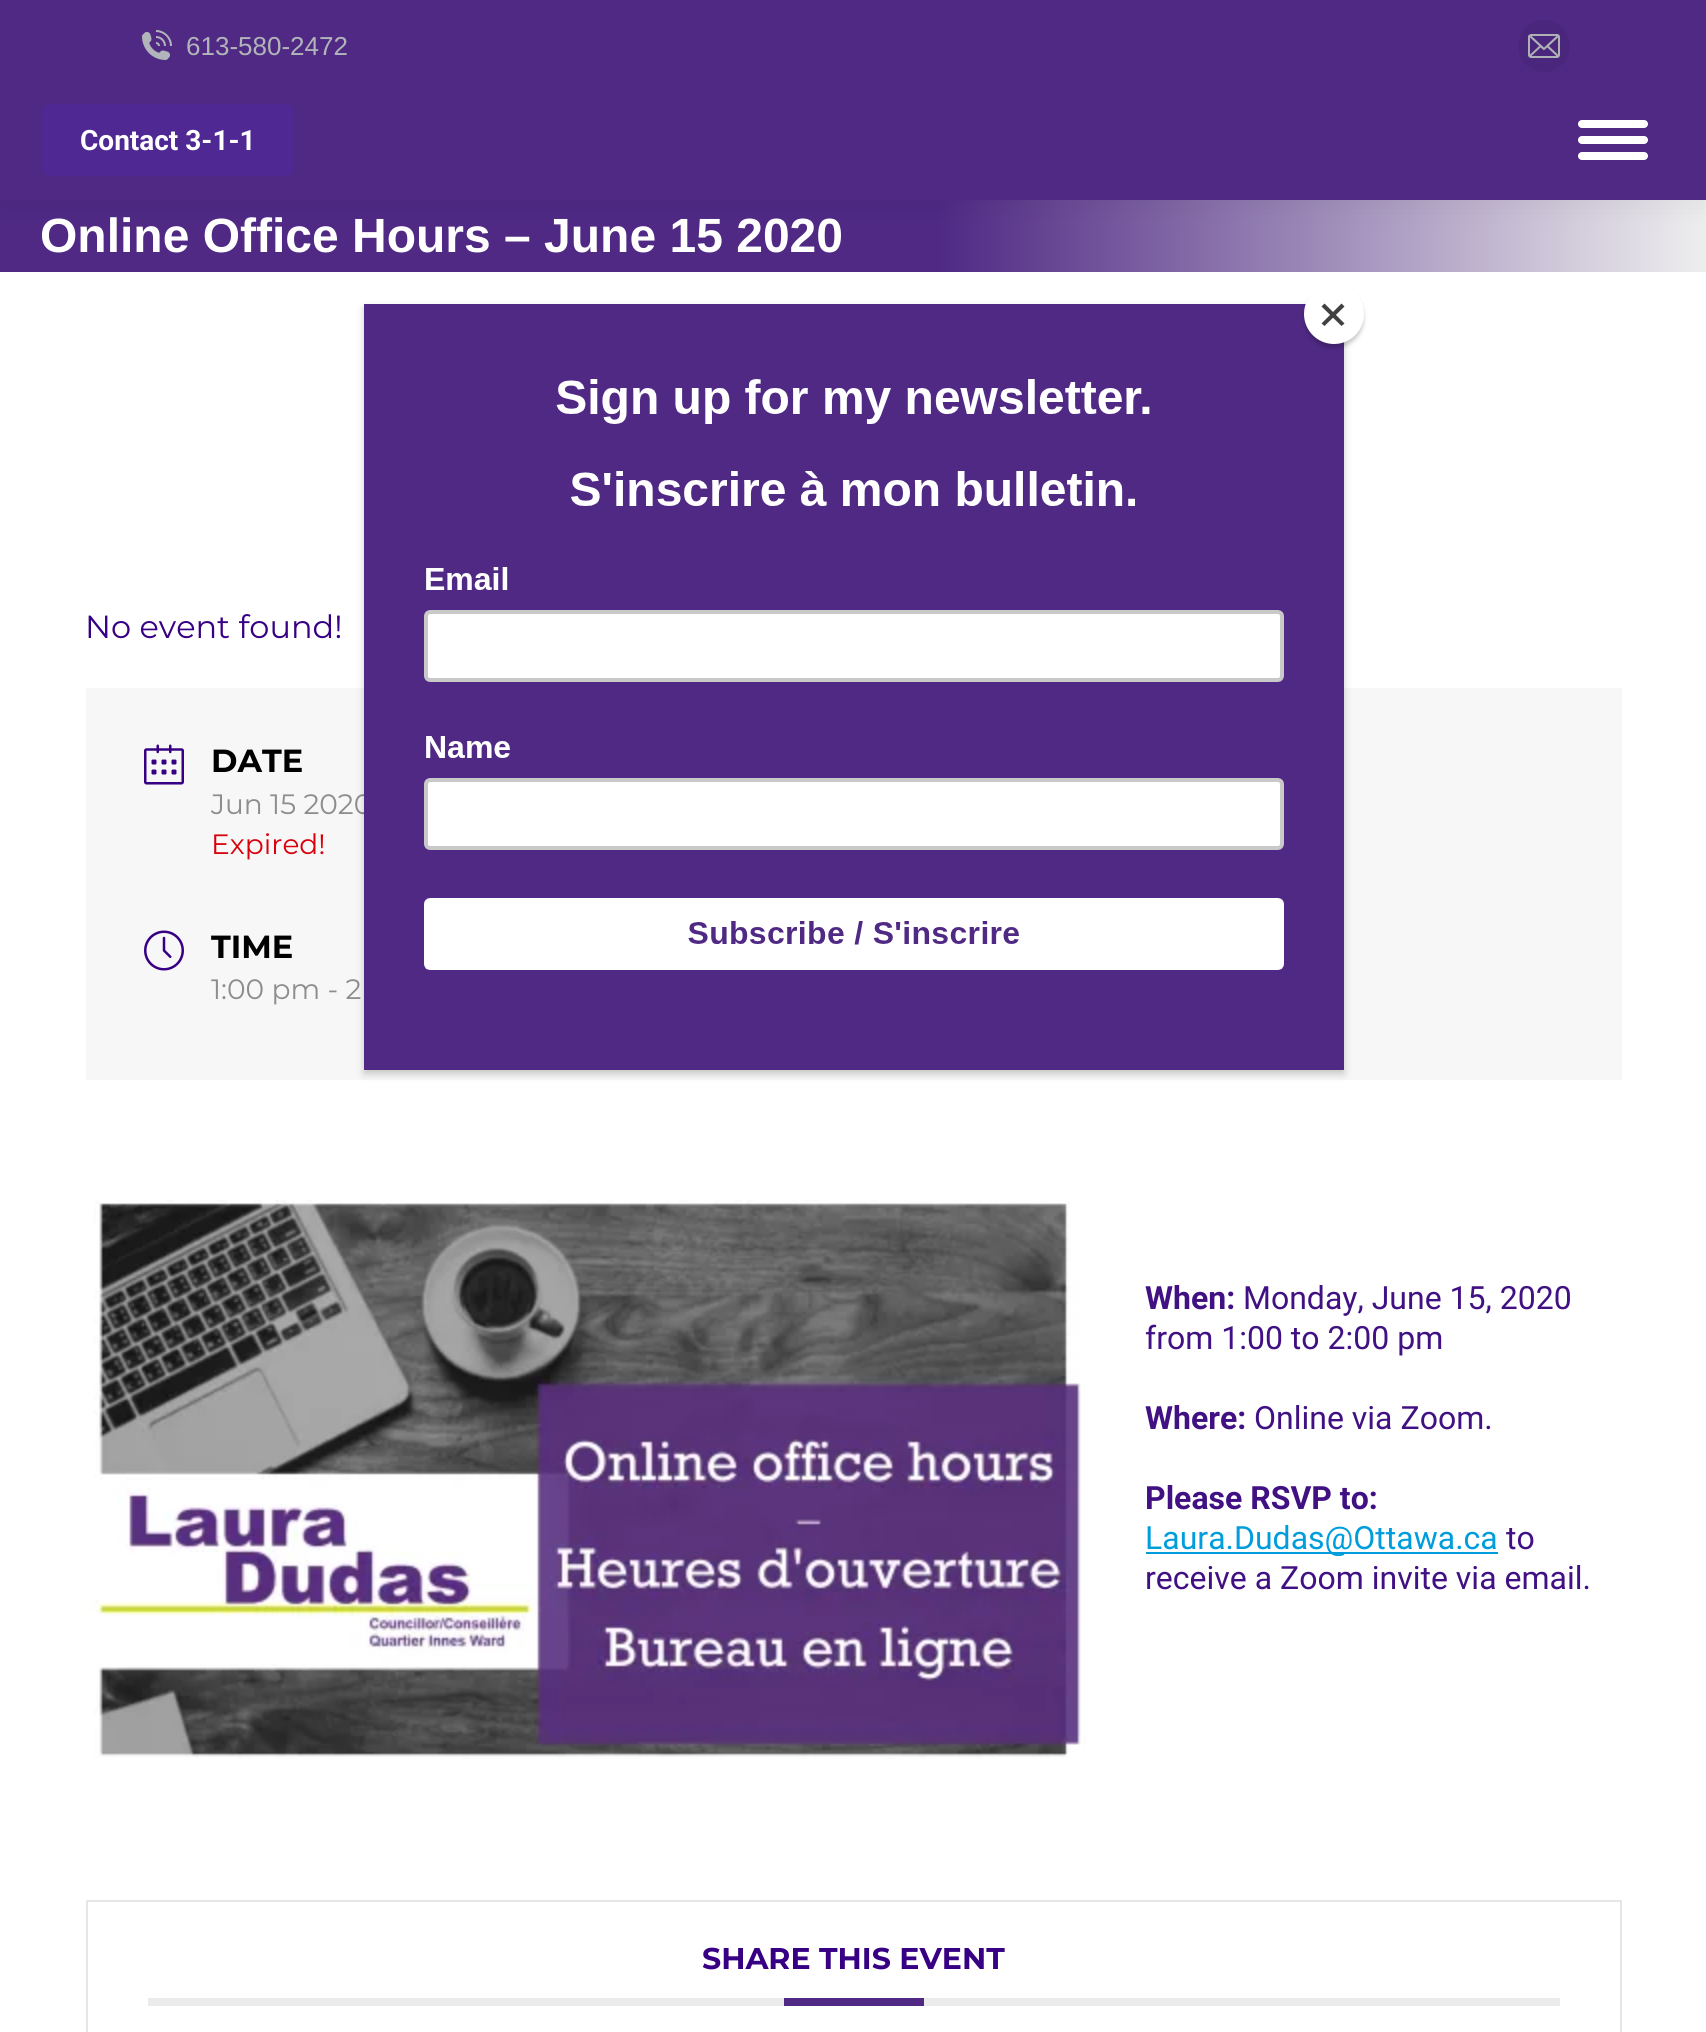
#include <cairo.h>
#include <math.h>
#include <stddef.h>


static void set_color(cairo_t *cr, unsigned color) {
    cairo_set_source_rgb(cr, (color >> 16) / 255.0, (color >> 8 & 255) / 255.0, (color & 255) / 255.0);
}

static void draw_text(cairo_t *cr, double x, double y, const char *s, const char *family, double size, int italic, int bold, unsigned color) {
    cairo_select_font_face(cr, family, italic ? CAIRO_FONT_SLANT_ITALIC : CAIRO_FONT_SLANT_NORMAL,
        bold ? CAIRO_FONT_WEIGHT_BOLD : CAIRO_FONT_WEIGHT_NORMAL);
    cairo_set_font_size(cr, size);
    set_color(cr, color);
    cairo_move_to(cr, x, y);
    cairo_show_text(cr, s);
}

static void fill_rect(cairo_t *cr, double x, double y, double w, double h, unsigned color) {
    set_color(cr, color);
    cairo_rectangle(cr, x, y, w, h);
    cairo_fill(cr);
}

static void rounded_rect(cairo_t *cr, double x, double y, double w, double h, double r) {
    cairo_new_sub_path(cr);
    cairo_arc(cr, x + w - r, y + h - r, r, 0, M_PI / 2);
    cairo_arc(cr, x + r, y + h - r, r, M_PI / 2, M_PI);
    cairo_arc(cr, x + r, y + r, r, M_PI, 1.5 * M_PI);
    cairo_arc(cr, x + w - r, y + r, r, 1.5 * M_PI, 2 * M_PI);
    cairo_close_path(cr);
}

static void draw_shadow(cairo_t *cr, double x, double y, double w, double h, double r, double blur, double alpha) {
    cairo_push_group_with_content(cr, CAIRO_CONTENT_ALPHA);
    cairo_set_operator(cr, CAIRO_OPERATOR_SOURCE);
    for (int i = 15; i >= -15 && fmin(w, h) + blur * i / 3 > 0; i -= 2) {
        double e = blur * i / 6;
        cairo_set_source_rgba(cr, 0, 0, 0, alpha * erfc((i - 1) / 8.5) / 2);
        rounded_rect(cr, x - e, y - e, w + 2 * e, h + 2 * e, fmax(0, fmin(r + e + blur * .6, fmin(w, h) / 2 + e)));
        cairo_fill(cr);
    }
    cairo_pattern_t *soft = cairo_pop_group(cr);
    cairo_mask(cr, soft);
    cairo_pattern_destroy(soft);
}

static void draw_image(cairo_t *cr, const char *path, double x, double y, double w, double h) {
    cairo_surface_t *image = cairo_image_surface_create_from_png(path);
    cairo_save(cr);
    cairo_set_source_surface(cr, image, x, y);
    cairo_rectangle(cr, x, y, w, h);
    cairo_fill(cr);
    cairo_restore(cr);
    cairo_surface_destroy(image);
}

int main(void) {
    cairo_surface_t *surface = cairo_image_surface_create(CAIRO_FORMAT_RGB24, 1706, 2032);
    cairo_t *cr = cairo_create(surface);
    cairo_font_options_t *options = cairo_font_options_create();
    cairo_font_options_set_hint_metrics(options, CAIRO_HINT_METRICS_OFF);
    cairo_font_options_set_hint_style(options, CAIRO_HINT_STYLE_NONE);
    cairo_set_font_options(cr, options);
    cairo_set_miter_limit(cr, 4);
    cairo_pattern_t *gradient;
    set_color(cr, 0xFFFFFF);
    cairo_paint(cr);
    gradient = cairo_pattern_create_linear(0, 236, 1706, 236);
    cairo_pattern_add_color_stop_rgba(gradient, 0, 0.31, 0.161, 0.518, 1);
    cairo_pattern_add_color_stop_rgba(gradient, 0.55, 0.31, 0.161, 0.518, 1);
    cairo_pattern_add_color_stop_rgba(gradient, 1, 0.933, 0.933, 0.933, 1);
    cairo_set_source(cr, gradient);
    cairo_pattern_destroy(gradient);
    cairo_rectangle(cr, 0, 200, 1706, 72);
    cairo_fill(cr);
    set_color(cr, 0x000000);
    draw_shadow(cr, -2, -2, 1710, 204, 0, 15, 0.07);
    fill_rect(cr, 0, 0, 1706, 200, 0x4F2984);
    draw_image(cr, "assets/img1.png", 142, 30, 30, 30);
    draw_text(cr, 186, 55, "613-580-2472", "Liberation Sans", 26, 0, 0, 0xB1B4B8);
    set_color(cr, 0x4A277C);
    cairo_new_path(cr);
    cairo_arc(cr, 1544, 46, 26, 0, 2 * M_PI);
    cairo_fill(cr);
    draw_image(cr, "assets/img2.png", 1528, 34, 32, 24);
    set_color(cr, 0x4F2894);
    rounded_rect(cr, 41, 103, 254, 74, 9);
    cairo_fill_preserve(cr);
    set_color(cr, 0x4F2984);
    cairo_stroke(cr);
    draw_text(cr, 80, 150, "Contact 3-1-1", "Roboto", 28, 0, 1, 0xFFFFFF);
    rounded_rect(cr, 1578, 120, 70, 8, 4);
    cairo_fill(cr);
    rounded_rect(cr, 1578, 136, 70, 8, 4);
    cairo_fill(cr);
    rounded_rect(cr, 1578, 152, 70, 8, 4);
    cairo_fill(cr);
    draw_text(cr, 40, 252, "Online Office Hours – June 15 2020", "Liberation Sans", 48, 0, 1, 0xFFFFFF);
    draw_text(cr, 85, 638, "No event found!", "Montserrat", 32, 0, 0, 0x370084);
    fill_rect(cr, 86, 688, 1536, 392, 0xF7F7F7);
    draw_image(cr, "assets/img3.png", 144, 744, 40, 41);
    draw_text(cr, 211, 772, "DATE", "Montserrat", 32, 0, 1, 0x000000);
    draw_text(cr, 211, 814, "Jun 15 2020", "Montserrat", 28, 0, 0, 0x8D8D8D);
    draw_text(cr, 211, 854, "Expired!", "Montserrat", 28, 0, 0, 0xD8000C);
    draw_image(cr, "assets/img4.png", 144, 930, 40, 41);
    draw_text(cr, 211, 958, "TIME", "Montserrat", 32, 0, 1, 0x000000);
    draw_text(cr, 211, 999, "1:00 pm - 2", "Montserrat", 28, 0, 0, 0x8D8D8D);
    draw_image(cr, "assets/img5.png", 86, 1200, 1000, 559);
    draw_text(cr, 1145, 1309, "When:", "Roboto", 32, 0, 1, 0x411184);
    draw_text(cr, 1243, 1309, "Monday, June 15, 2020", "Roboto", 32, 0, 0, 0x411184);
    draw_text(cr, 1145, 1349, "from 1:00 to 2:00 pm", "Roboto", 32, 0, 0, 0x411184);
    draw_text(cr, 1145, 1429, "Where:", "Roboto", 32, 0, 1, 0x411184);
    draw_text(cr, 1254, 1429, "Online via Zoom.", "Roboto", 32, 0, 0, 0x411184);
    draw_text(cr, 1145, 1509, "Please RSVP to:", "Roboto", 32, 0, 1, 0x411184);
    fill_rect(cr, 1146, 1552, 352, 2, 0x009DDC);
    draw_text(cr, 1145, 1549, "Laura.Dudas@Ottawa.ca", "Roboto", 32, 0, 0, 0x009DDC);
    draw_text(cr, 1506, 1549, "to", "Roboto", 32, 0, 0, 0x411184);
    draw_text(cr, 1145, 1589, "receive a Zoom invite via email.", "Roboto", 32, 0, 0, 0x411184);
    cairo_rectangle(cr, 87, 1901, 1534, 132);
    set_color(cr, 0xE6E6E6);
    cairo_stroke(cr);
    fill_rect(cr, 148, 1998, 1412, 8, 0xEBEBEB);
    draw_text(cr, 702, 1969, "SHARE THIS EVENT", "Montserrat", 30, 0, 1, 0x370084);
    fill_rect(cr, 784, 1998, 140, 8, 0x4F2984);
    set_color(cr, 0x000000);
    draw_shadow(cr, 364, 308, 980, 766, 0, 4, 0.2);
    draw_image(cr, "assets/img6.png", 364, 304, 980, 766);
    draw_shadow(cr, 1304, 288, 60, 60, 30, 2, 0.2);
    set_color(cr, 0xFFFFFF);
    cairo_arc(cr, 1334, 314, 30, 0, 2 * M_PI);
    cairo_fill(cr);
    set_color(cr, 0x414141);
    cairo_new_path(cr);
    cairo_move_to(cr, 1341.5, 303.5);
    cairo_line_to(cr, 1344.5, 306.5);
    cairo_line_to(cr, 1324.5, 326);
    cairo_line_to(cr, 1321.5, 323.5);
    cairo_close_path(cr);
    cairo_fill(cr);
    cairo_new_path(cr);
    cairo_move_to(cr, 1321.5, 306.5);
    cairo_line_to(cr, 1324.5, 303.5);
    cairo_line_to(cr, 1344.5, 323.5);
    cairo_line_to(cr, 1341.5, 326);
    cairo_close_path(cr);
    cairo_fill(cr);
    cairo_surface_write_to_png(surface, "output.png");
    cairo_font_options_destroy(options);
    cairo_destroy(cr);
    cairo_surface_destroy(surface);
    return 0;
}
